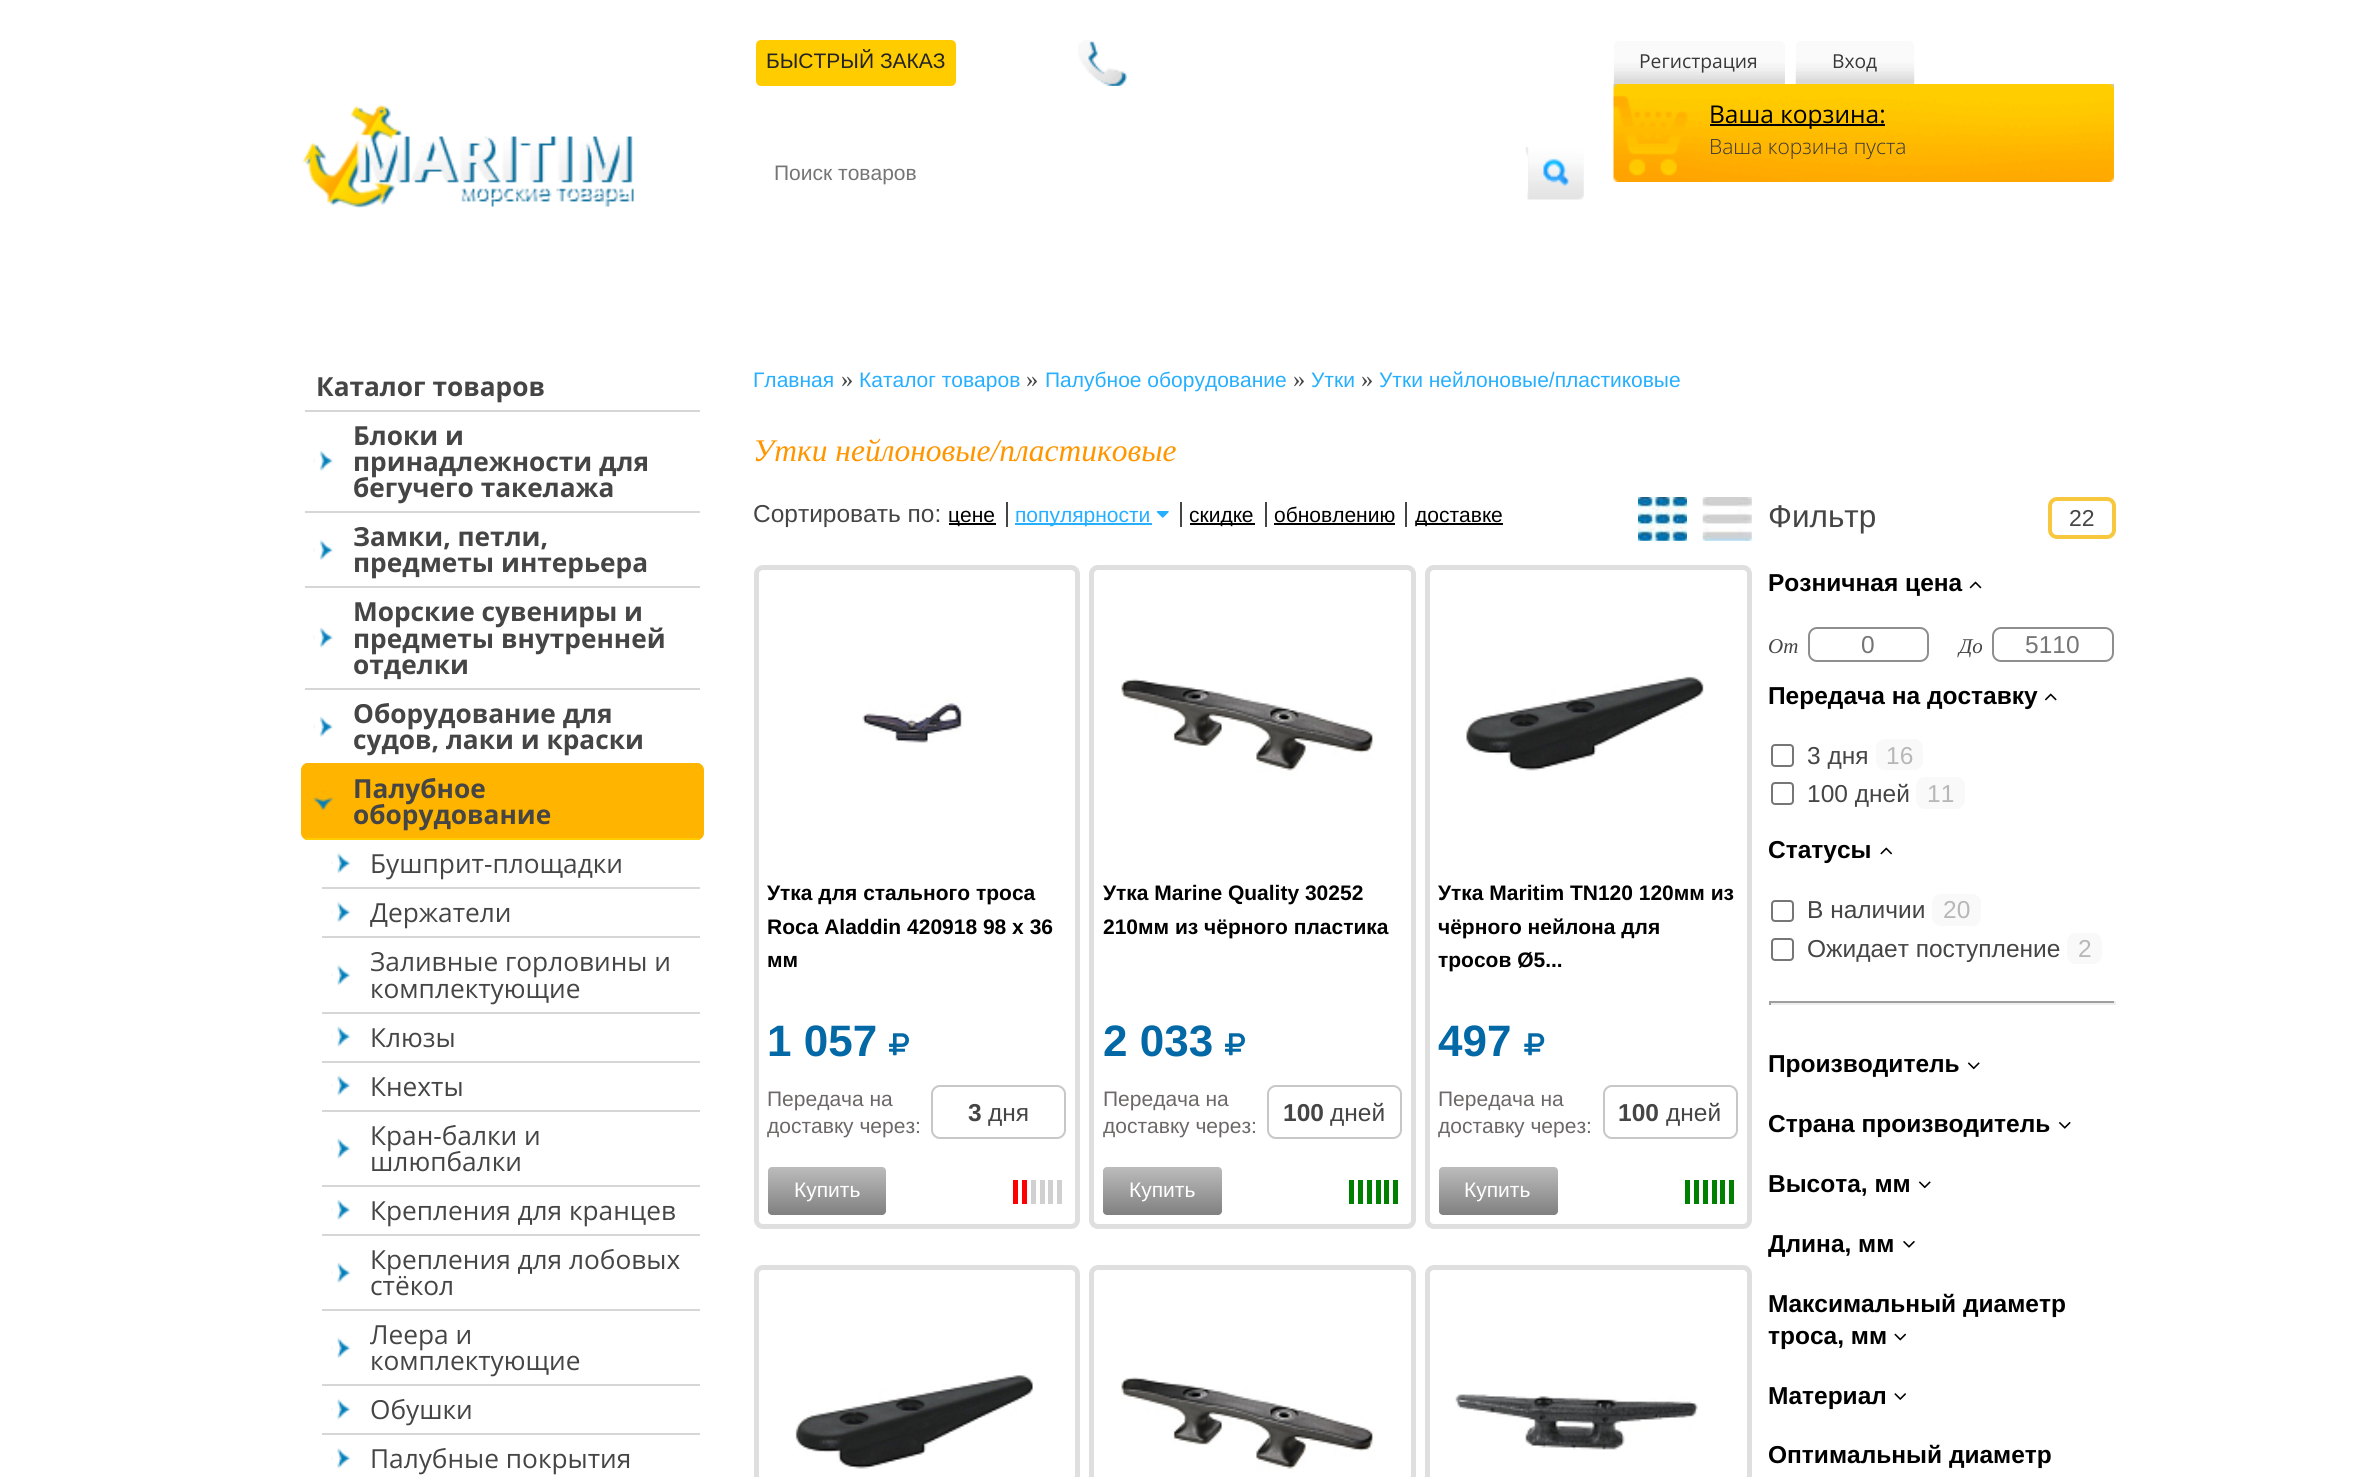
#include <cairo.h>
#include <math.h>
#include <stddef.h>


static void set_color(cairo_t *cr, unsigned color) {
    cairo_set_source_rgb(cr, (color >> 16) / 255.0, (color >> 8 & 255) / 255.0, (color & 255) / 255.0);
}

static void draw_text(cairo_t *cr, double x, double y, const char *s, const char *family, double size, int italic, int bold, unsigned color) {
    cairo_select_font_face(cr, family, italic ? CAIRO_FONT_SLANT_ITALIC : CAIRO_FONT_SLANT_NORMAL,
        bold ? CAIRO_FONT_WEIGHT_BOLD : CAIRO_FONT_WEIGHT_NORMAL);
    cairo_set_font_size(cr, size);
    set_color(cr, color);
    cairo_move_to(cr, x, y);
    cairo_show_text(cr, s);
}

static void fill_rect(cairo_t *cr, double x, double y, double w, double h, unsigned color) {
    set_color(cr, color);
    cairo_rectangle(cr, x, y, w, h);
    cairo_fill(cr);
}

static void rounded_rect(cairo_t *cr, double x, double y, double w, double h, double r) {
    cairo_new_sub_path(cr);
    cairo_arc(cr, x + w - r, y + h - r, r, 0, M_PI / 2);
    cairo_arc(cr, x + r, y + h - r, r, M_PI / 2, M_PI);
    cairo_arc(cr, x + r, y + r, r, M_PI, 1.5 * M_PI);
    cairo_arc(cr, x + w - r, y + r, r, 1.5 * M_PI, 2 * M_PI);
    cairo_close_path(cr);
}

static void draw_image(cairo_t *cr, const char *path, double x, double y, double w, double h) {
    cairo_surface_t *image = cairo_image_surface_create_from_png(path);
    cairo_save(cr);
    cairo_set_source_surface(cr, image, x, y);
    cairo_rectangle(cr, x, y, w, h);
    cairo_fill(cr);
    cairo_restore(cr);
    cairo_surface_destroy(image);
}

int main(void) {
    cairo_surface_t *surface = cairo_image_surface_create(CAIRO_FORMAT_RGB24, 2361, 1477);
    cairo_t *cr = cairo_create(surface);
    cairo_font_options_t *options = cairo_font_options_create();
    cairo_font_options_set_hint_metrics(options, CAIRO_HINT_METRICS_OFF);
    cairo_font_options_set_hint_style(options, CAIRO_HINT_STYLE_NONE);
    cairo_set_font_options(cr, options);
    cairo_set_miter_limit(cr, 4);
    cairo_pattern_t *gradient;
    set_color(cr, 0xFFFFFF);
    cairo_paint(cr);
    draw_image(cr, "assets/img1.png", 302, 105, 332, 103);
    set_color(cr, 0xFFCC00);
    rounded_rect(cr, 756, 40, 200, 46, 5);
    cairo_fill(cr);
    draw_text(cr, 766, 68, "БЫСТРЫЙ ЗАКАЗ", "Liberation Sans", 21, 0, 0, 0x242424);
    draw_image(cr, "assets/img2.png", 1078, 40, 49, 46);
    draw_image(cr, "assets/img3.png", 1613, 41, 172, 43);
    draw_text(cr, 1639, 68, "Регистрация", "Open Sans", 19.25, 0, 0, 0x383838);
    draw_image(cr, "assets/img4.png", 1795, 41, 120, 43);
    draw_text(cr, 1832, 68, "Вход", "Open Sans", 19.25, 0, 0, 0x383838);
    draw_image(cr, "assets/img5.png", 1613, 84, 501, 98);
    fill_rect(cr, 1710, 124, 175, 2, 0x000000);
    draw_text(cr, 1709, 123, "Ваша корзина:", "Open Sans", 24.5, 0, 0, 0x000000);
    draw_text(cr, 1709, 154, "Ваша корзина пуста", "Open Sans Light", 21, 0, 0, 0x383838);
    draw_image(cr, "assets/img6.png", 1525, 147, 59, 53);
    set_color(cr, 0xFFFFFF);
    rounded_rect(cr, 758, 147, 770, 53, 12);
    cairo_fill(cr);
    draw_text(cr, 774, 180, "Поиск товаров", "Liberation Sans", 21, 0, 0, 0x757575);
    fill_rect(cr, 305, 410, 395, 2, 0xD6D6D6);
    draw_text(cr, 316, 396, "Каталог товаров", "Open Sans", 26.25, 0, 1, 0x454545);
    draw_image(cr, "assets/img7.png", 313, 450, 20, 21);
    fill_rect(cr, 305, 511, 395, 2, 0xD6D6D6);
    draw_text(cr, 353, 445, "Блоки и", "Open Sans", 26.25, 0, 1, 0x454545);
    draw_text(cr, 353, 471, "принадлежности для", "Open Sans", 26.25, 0, 1, 0x454545);
    draw_text(cr, 353, 497, "бегучего такелажа", "Open Sans", 26.25, 0, 1, 0x454545);
    draw_image(cr, "assets/img8.png", 313, 539, 20, 21);
    fill_rect(cr, 305, 586, 395, 2, 0xD6D6D6);
    draw_text(cr, 353, 546, "Замки, петли,", "Open Sans", 26.25, 0, 1, 0x454545);
    draw_text(cr, 353, 572, "предметы интерьера", "Open Sans", 26.25, 0, 1, 0x454545);
    draw_image(cr, "assets/img9.png", 313, 627, 20, 21);
    fill_rect(cr, 305, 688, 395, 2, 0xD6D6D6);
    draw_text(cr, 353, 621, "Морские сувениры и", "Open Sans", 26.25, 0, 1, 0x454545);
    draw_text(cr, 353, 648, "предметы внутренней", "Open Sans", 26.25, 0, 1, 0x454545);
    draw_text(cr, 353, 674, "отделки", "Open Sans", 26.25, 0, 1, 0x454545);
    draw_image(cr, "assets/img7.png", 313, 716, 20, 21);
    fill_rect(cr, 305, 763, 395, 1, 0xD6D6D6);
    draw_text(cr, 353, 723, "Оборудование для", "Open Sans", 26.25, 0, 1, 0x454545);
    draw_text(cr, 353, 749, "судов, лаки и краски", "Open Sans", 26.25, 0, 1, 0x454545);
    set_color(cr, 0xFFB400);
    rounded_rect(cr, 301, 763, 403, 77, 7);
    cairo_fill(cr);
    draw_image(cr, "assets/img10.png", 313, 791, 21, 20);
    fill_rect(cr, 305, 838, 395, 2, 0xFFCC00);
    draw_text(cr, 353, 798, "Палубное", "Open Sans", 26.25, 0, 1, 0x454545);
    draw_text(cr, 353, 824, "оборудование", "Open Sans", 26.25, 0, 1, 0x454545);
    draw_image(cr, "assets/img11.png", 331, 852, 20, 22);
    fill_rect(cr, 322, 887, 378, 2, 0xD6D6D6);
    draw_text(cr, 370, 873, "Бушприт-площадки", "Open Sans", 26.25, 0, 0, 0x454545);
    draw_image(cr, "assets/img11.png", 331, 901, 20, 22);
    fill_rect(cr, 322, 936, 378, 2, 0xD6D6D6);
    draw_text(cr, 370, 922, "Держатели", "Open Sans", 26.25, 0, 0, 0x454545);
    draw_image(cr, "assets/img11.png", 331, 964, 20, 22);
    fill_rect(cr, 322, 1012, 378, 2, 0xD6D6D6);
    draw_text(cr, 370, 971, "Заливные горловины и", "Open Sans", 26.25, 0, 0, 0x454545);
    draw_text(cr, 370, 998, "комплектующие", "Open Sans", 26.25, 0, 0, 0x454545);
    draw_image(cr, "assets/img12.png", 331, 1026, 20, 21);
    fill_rect(cr, 322, 1061, 378, 2, 0xD6D6D6);
    draw_text(cr, 370, 1047, "Клюзы", "Open Sans", 26.25, 0, 0, 0x454545);
    draw_image(cr, "assets/img12.png", 331, 1075, 20, 21);
    fill_rect(cr, 322, 1110, 378, 2, 0xD6D6D6);
    draw_text(cr, 370, 1096, "Кнехты", "Open Sans", 26.25, 0, 0, 0x454545);
    draw_image(cr, "assets/img12.png", 331, 1138, 20, 21);
    fill_rect(cr, 322, 1185, 378, 2, 0xD6D6D6);
    draw_text(cr, 370, 1145, "Кран-балки и", "Open Sans", 26.25, 0, 0, 0x454545);
    draw_text(cr, 370, 1171, "шлюпбалки", "Open Sans", 26.25, 0, 0, 0x454545);
    draw_image(cr, "assets/img13.png", 331, 1199, 20, 21);
    fill_rect(cr, 322, 1234, 378, 2, 0xD6D6D6);
    draw_text(cr, 370, 1220, "Крепления для кранцев", "Open Sans", 26.25, 0, 0, 0x454545);
    draw_image(cr, "assets/img13.png", 331, 1262, 20, 21);
    fill_rect(cr, 322, 1309, 378, 2, 0xD6D6D6);
    draw_text(cr, 370, 1269, "Крепления для лобовых", "Open Sans", 26.25, 0, 0, 0x454545);
    draw_text(cr, 370, 1295, "стёкол", "Open Sans", 26.25, 0, 0, 0x454545);
    draw_image(cr, "assets/img14.png", 331, 1337, 20, 21);
    fill_rect(cr, 322, 1384, 378, 2, 0xD6D6D6);
    draw_text(cr, 370, 1344, "Леера и", "Open Sans", 26.25, 0, 0, 0x454545);
    draw_text(cr, 370, 1370, "комплектующие", "Open Sans", 26.25, 0, 0, 0x454545);
    draw_image(cr, "assets/img11.png", 331, 1398, 20, 22);
    fill_rect(cr, 322, 1433, 378, 2, 0xD6D6D6);
    draw_text(cr, 370, 1419, "Обушки", "Open Sans", 26.25, 0, 0, 0x454545);
    draw_image(cr, "assets/img11.png", 331, 1447, 20, 22);
    draw_text(cr, 370, 1468, "Палубные покрытия", "Open Sans", 26.25, 0, 0, 0x454545);
    draw_text(cr, 753, 387, "Главная", "Liberation Sans", 21, 0, 0, 0x26AFFF);
    draw_text(cr, 841, 387, "»", "Liberation Serif", 24.5, 0, 0, 0x454545);
    draw_text(cr, 859, 387, "Каталог товаров", "Liberation Sans", 21, 0, 0, 0x26AFFF);
    draw_text(cr, 1026, 387, "»", "Liberation Serif", 24.5, 0, 0, 0x454545);
    draw_text(cr, 1045, 387, "Палубное оборудование", "Liberation Sans", 21, 0, 0, 0x26AFFF);
    draw_text(cr, 1293, 387, "»", "Liberation Serif", 24.5, 0, 0, 0x454545);
    draw_text(cr, 1311, 387, "Утки", "Liberation Sans", 21, 0, 0, 0x26AFFF);
    draw_text(cr, 1361, 387, "»", "Liberation Serif", 24.5, 0, 0, 0x454545);
    draw_text(cr, 1379, 387, "Утки нейлоновые/пластиковые", "Liberation Sans", 21, 0, 0, 0x26AFFF);
    draw_text(cr, 753, 461, "Утки нейлоновые/пластиковые", "Liberation Serif", 31.5, 1, 0, 0xFF9600);
    draw_text(cr, 753, 522, "Сортировать по:", "Liberation Sans", 24.5, 0, 0, 0x454545);
    fill_rect(cr, 949, 523, 47, 2, 0x000000);
    draw_text(cr, 948, 522, "цене", "Liberation Sans", 21, 0, 0, 0x000000);
    fill_rect(cr, 1006, 502, 2, 25, 0x454545);
    fill_rect(cr, 1015, 523, 137, 2, 0x26AFFF);
    draw_text(cr, 1015, 522, "популярности", "Liberation Sans", 21, 0, 0, 0x26AFFF);
    draw_image(cr, "assets/img15.png", 1156, 511, 13, 7);
    fill_rect(cr, 1180, 502, 2, 25, 0x454545);
    fill_rect(cr, 1190, 523, 65, 2, 0x000000);
    draw_text(cr, 1189, 522, "скидке", "Liberation Sans", 21, 0, 0, 0x000000);
    fill_rect(cr, 1265, 502, 2, 25, 0x454545);
    draw_text(cr, 1274, 522, "обновлению", "Liberation Sans", 21, 0, 0, 0x000000);
    fill_rect(cr, 1274, 523, 121, 2, 0x000000);
    fill_rect(cr, 1405, 502, 2, 25, 0x454545);
    fill_rect(cr, 1416, 523, 87, 2, 0x000000);
    draw_text(cr, 1415, 522, "доставке", "Liberation Sans", 21, 0, 0, 0x000000);
    draw_image(cr, "assets/img16.png", 1638, 497, 49, 44);
    draw_image(cr, "assets/img17.png", 1702, 497, 50, 44);
    rounded_rect(cr, 756.5, 567.5, 321, 659, 6.5);
    set_color(cr, 0xDFDFDF);
    cairo_set_line_width(cr, 5);
    cairo_stroke(cr);
    draw_image(cr, "assets/img18.png", 862, 697, 102, 46);
    draw_text(cr, 767, 900, "Утка для стального троса", "Liberation Sans", 21, 0, 1, 0x000000);
    draw_text(cr, 767, 934, "Roca Aladdin 420918 98 x 36", "Liberation Sans", 21, 0, 1, 0x000000);
    draw_text(cr, 767, 967, "мм", "Liberation Sans", 21, 0, 1, 0x000000);
    draw_text(cr, 767, 1056, "1 057", "Liberation Sans", 44, 0, 1, 0x0268A6);
    draw_image(cr, "assets/img19.png", 889, 1033, 20, 23);
    draw_text(cr, 767, 1106, "Передача на", "Liberation Sans", 21, 0, 0, 0x6C6868);
    draw_text(cr, 767, 1133, "доставку через:", "Liberation Sans", 21, 0, 0, 0x6C6868);
    rounded_rect(cr, 932, 1086, 133, 52, 8);
    set_color(cr, 0xC7C7C7);
    cairo_set_line_width(cr, 2);
    cairo_stroke(cr);
    draw_text(cr, 968, 1121, "3", "Liberation Sans", 24.5, 0, 1, 0x454545);
    draw_text(cr, 988, 1121, "дня", "Liberation Sans", 24.5, 0, 0, 0x454545);
    gradient = cairo_pattern_create_linear(827, 1167, 827, 1215);
    cairo_pattern_add_color_stop_rgba(gradient, 0, 0.737, 0.737, 0.737, 1);
    cairo_pattern_add_color_stop_rgba(gradient, 1, 0.502, 0.502, 0.502, 1);
    cairo_set_source(cr, gradient);
    cairo_pattern_destroy(gradient);
    rounded_rect(cr, 768, 1167, 118, 48, 4);
    cairo_fill(cr);
    draw_text(cr, 794, 1197, "Купить", "Liberation Sans", 21, 0, 0, 0xFFFFFF);
    fill_rect(cr, 1013, 1180, 5, 24, 0xFF0000);
    fill_rect(cr, 1022, 1180, 5, 24, 0xFF0000);
    fill_rect(cr, 1031, 1180, 5, 24, 0xD0D0D0);
    fill_rect(cr, 1040, 1180, 5, 24, 0xD0D0D0);
    fill_rect(cr, 1048, 1180, 5, 24, 0xD0D0D0);
    fill_rect(cr, 1057, 1180, 5, 24, 0xD0D0D0);
    rounded_rect(cr, 1091.5, 567.5, 322, 659, 6.5);
    set_color(cr, 0xDFDFDF);
    cairo_set_line_width(cr, 5);
    cairo_stroke(cr);
    draw_image(cr, "assets/img20.png", 1121, 678, 254, 97);
    draw_text(cr, 1103, 900, "Утка Marine Quality 30252", "Liberation Sans", 21, 0, 1, 0x000000);
    draw_text(cr, 1103, 934, "210мм из чёрного пластика", "Liberation Sans", 21, 0, 1, 0x000000);
    draw_text(cr, 1103, 1056, "2 033", "Liberation Sans", 44, 0, 1, 0x0268A6);
    draw_image(cr, "assets/img19.png", 1225, 1033, 20, 23);
    draw_text(cr, 1103, 1106, "Передача на", "Liberation Sans", 21, 0, 0, 0x6C6868);
    draw_text(cr, 1103, 1133, "доставку через:", "Liberation Sans", 21, 0, 0, 0x6C6868);
    rounded_rect(cr, 1268, 1086, 133, 52, 8);
    set_color(cr, 0xC7C7C7);
    cairo_set_line_width(cr, 2);
    cairo_stroke(cr);
    draw_text(cr, 1283, 1121, "100", "Liberation Sans", 24.5, 0, 1, 0x454545);
    draw_text(cr, 1330, 1121, "дней", "Liberation Sans", 24.5, 0, 0, 0x454545);
    gradient = cairo_pattern_create_linear(1162, 1167, 1162, 1215);
    cairo_pattern_add_color_stop_rgba(gradient, 0, 0.737, 0.737, 0.737, 1);
    cairo_pattern_add_color_stop_rgba(gradient, 1, 0.502, 0.502, 0.502, 1);
    cairo_set_source(cr, gradient);
    cairo_pattern_destroy(gradient);
    rounded_rect(cr, 1103, 1167, 119, 48, 4);
    cairo_fill(cr);
    draw_text(cr, 1129, 1197, "Купить", "Liberation Sans", 21, 0, 0, 0xFFFFFF);
    fill_rect(cr, 1349, 1180, 5, 24, 0x008000);
    fill_rect(cr, 1358, 1180, 5, 24, 0x008000);
    fill_rect(cr, 1367, 1180, 5, 24, 0x008000);
    fill_rect(cr, 1376, 1180, 5, 24, 0x008000);
    fill_rect(cr, 1384, 1180, 5, 24, 0x008000);
    fill_rect(cr, 1393, 1180, 5, 24, 0x008000);
    rounded_rect(cr, 1427.5, 567.5, 322, 659, 6.5);
    set_color(cr, 0xDFDFDF);
    cairo_set_line_width(cr, 5);
    cairo_stroke(cr);
    draw_image(cr, "assets/img21.png", 1466, 676, 238, 95);
    draw_text(cr, 1438, 900, "Утка Maritim TN120 120мм из", "Liberation Sans", 21, 0, 1, 0x000000);
    draw_text(cr, 1438, 934, "чёрного нейлона для", "Liberation Sans", 21, 0, 1, 0x000000);
    draw_text(cr, 1438, 967, "тросов Ø5...", "Liberation Sans", 21, 0, 1, 0x000000);
    draw_text(cr, 1438, 1056, "497", "Liberation Sans", 44, 0, 1, 0x0268A6);
    draw_image(cr, "assets/img22.png", 1524, 1033, 21, 23);
    draw_text(cr, 1438, 1106, "Передача на", "Liberation Sans", 21, 0, 0, 0x6C6868);
    draw_text(cr, 1438, 1133, "доставку через:", "Liberation Sans", 21, 0, 0, 0x6C6868);
    rounded_rect(cr, 1604, 1086, 133, 52, 8);
    set_color(cr, 0xC7C7C7);
    cairo_set_line_width(cr, 2);
    cairo_stroke(cr);
    draw_text(cr, 1618, 1121, "100", "Liberation Sans", 24.5, 0, 1, 0x454545);
    draw_text(cr, 1666, 1121, "дней", "Liberation Sans", 24.5, 0, 0, 0x454545);
    gradient = cairo_pattern_create_linear(1498, 1167, 1498, 1215);
    cairo_pattern_add_color_stop_rgba(gradient, 0, 0.737, 0.737, 0.737, 1);
    cairo_pattern_add_color_stop_rgba(gradient, 1, 0.502, 0.502, 0.502, 1);
    cairo_set_source(cr, gradient);
    cairo_pattern_destroy(gradient);
    rounded_rect(cr, 1439, 1167, 119, 48, 4);
    cairo_fill(cr);
    draw_text(cr, 1464, 1197, "Купить", "Liberation Sans", 21, 0, 0, 0xFFFFFF);
    fill_rect(cr, 1685, 1180, 5, 24, 0x008000);
    fill_rect(cr, 1694, 1180, 5, 24, 0x008000);
    fill_rect(cr, 1703, 1180, 5, 24, 0x008000);
    fill_rect(cr, 1712, 1180, 5, 24, 0x008000);
    fill_rect(cr, 1720, 1180, 5, 24, 0x008000);
    fill_rect(cr, 1729, 1180, 5, 24, 0x008000);
    rounded_rect(cr, 756.5, 1267.5, 321, 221, 6.5);
    set_color(cr, 0xDFDFDF);
    cairo_set_line_width(cr, 5);
    cairo_stroke(cr);
    draw_image(cr, "assets/img23.png", 795, 1375, 238, 94);
    rounded_rect(cr, 1091.5, 1267.5, 322, 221, 6.5);
    cairo_stroke(cr);
    draw_image(cr, "assets/img24.png", 1121, 1377, 254, 96);
    rounded_rect(cr, 1427.5, 1267.5, 322, 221, 6.5);
    cairo_stroke(cr);
    draw_image(cr, "assets/img25.png", 1455, 1394, 243, 56);
    draw_text(cr, 1768, 527, "Фильтр", "Liberation Sans", 31.5, 0, 0, 0x454545);
    rounded_rect(cr, 2050, 499, 64, 38, 7);
    set_color(cr, 0xF7C83E);
    cairo_set_line_width(cr, 4);
    cairo_stroke(cr);
    draw_text(cr, 2069, 526, "22", "Liberation Sans", 23, 0, 0, 0x454545);
    draw_text(cr, 1768, 591, "Розничная цена", "Liberation Sans", 24.5, 0, 1, 0x000000);
    draw_image(cr, "assets/img26.png", 1969, 581, 13, 8);
    draw_text(cr, 1768, 653, "От", "Liberation Serif", 21, 1, 0, 0x454545);
    rounded_rect(cr, 1809, 628, 119, 33, 8);
    set_color(cr, 0x8E8E8E);
    cairo_set_line_width(cr, 2);
    cairo_stroke(cr);
    draw_text(cr, 1861, 653, "0", "Liberation Sans", 24.5, 0, 0, 0x757575);
    draw_text(cr, 1959, 653, "До", "Liberation Serif", 21, 1, 0, 0x454545);
    rounded_rect(cr, 1993, 628, 120, 33, 8);
    set_color(cr, 0x8E8E8E);
    cairo_stroke(cr);
    draw_text(cr, 2025, 653, "5110", "Liberation Sans", 24.5, 0, 0, 0x757575);
    draw_text(cr, 1768, 704, "Передача на доставку", "Liberation Sans", 24.5, 0, 1, 0x000000);
    draw_image(cr, "assets/img27.png", 2044, 693, 13, 8);
    rounded_rect(cr, 1772, 745, 21, 21, 3);
    set_color(cr, 0x767676);
    cairo_stroke(cr);
    draw_text(cr, 1807, 764, "3 дня", "Liberation Sans", 24.5, 0, 0, 0x454545);
    set_color(cr, 0xF9F9F9);
    rounded_rect(cr, 1876, 739, 47, 31, 9);
    cairo_fill(cr);
    draw_text(cr, 1886, 764, "16", "Liberation Sans", 24.5, 0, 0, 0xB7B7B7);
    rounded_rect(cr, 1772, 783, 21, 21, 3);
    set_color(cr, 0x767676);
    cairo_stroke(cr);
    draw_text(cr, 1807, 802, "100 дней", "Liberation Sans", 24.5, 0, 0, 0x454545);
    set_color(cr, 0xF9F9F9);
    rounded_rect(cr, 1916, 777, 49, 32, 9);
    cairo_fill(cr);
    draw_text(cr, 1927, 802, "11", "Liberation Sans", 24.5, 0, 0, 0xB7B7B7);
    draw_text(cr, 1768, 858, "Статусы", "Liberation Sans", 24.5, 0, 1, 0x000000);
    draw_image(cr, "assets/img28.png", 1880, 847, 13, 8);
    rounded_rect(cr, 1772, 901, 21, 20, 3);
    set_color(cr, 0x767676);
    cairo_stroke(cr);
    draw_text(cr, 1807, 918, "В наличии", "Liberation Sans", 24.5, 0, 0, 0x454545);
    set_color(cr, 0xF9F9F9);
    rounded_rect(cr, 1932, 894, 49, 32, 9);
    cairo_fill(cr);
    draw_text(cr, 1943, 918, "20", "Liberation Sans", 24.5, 0, 0, 0xB7B7B7);
    rounded_rect(cr, 1772, 939, 21, 21, 3);
    set_color(cr, 0x767676);
    cairo_stroke(cr);
    draw_text(cr, 1807, 957, "Ожидает поступление", "Liberation Sans", 24.5, 0, 0, 0x454545);
    set_color(cr, 0xF9F9F9);
    rounded_rect(cr, 2067, 933, 35, 31, 9);
    cairo_fill(cr);
    draw_text(cr, 2078, 957, "2", "Liberation Sans", 24.5, 0, 0, 0xB7B7B7);
    fill_rect(cr, 1769, 1001, 347, 2, 0x9F9F9F);
    fill_rect(cr, 2114, 1001, 2, 4, 0xEEEEEE);
    fill_rect(cr, 1769, 1003, 347, 2, 0xEEEEEE);
    fill_rect(cr, 1769, 1001, 2, 4, 0x9F9F9F);
    draw_text(cr, 1768, 1072, "Производитель", "Liberation Sans", 24.5, 0, 1, 0x000000);
    draw_image(cr, "assets/img29.png", 1967, 1062, 13, 8);
    draw_text(cr, 1768, 1132, "Страна производитель", "Liberation Sans", 24.5, 0, 1, 0x000000);
    draw_image(cr, "assets/img30.png", 2059, 1122, 12, 7);
    draw_text(cr, 1768, 1192, "Высота, мм", "Liberation Sans", 24.5, 0, 1, 0x000000);
    draw_image(cr, "assets/img29.png", 1918, 1181, 13, 8);
    draw_text(cr, 1768, 1252, "Длина, мм", "Liberation Sans", 24.5, 0, 1, 0x000000);
    draw_image(cr, "assets/img31.png", 1903, 1241, 12, 7);
    draw_text(cr, 1768, 1312, "Максимальный диаметр", "Liberation Sans", 24.5, 0, 1, 0x000000);
    draw_text(cr, 1768, 1344, "троса, мм", "Liberation Sans", 24.5, 0, 1, 0x000000);
    draw_image(cr, "assets/img32.png", 1894, 1333, 13, 8);
    draw_text(cr, 1768, 1404, "Материал", "Liberation Sans", 24.5, 0, 1, 0x000000);
    draw_image(cr, "assets/img33.png", 1894, 1393, 12, 7);
    draw_text(cr, 1768, 1463, "Оптимальный диаметр", "Liberation Sans", 24.5, 0, 1, 0x000000);
    cairo_surface_write_to_png(surface, "output.png");
    cairo_font_options_destroy(options);
    cairo_destroy(cr);
    cairo_surface_destroy(surface);
    return 0;
}
